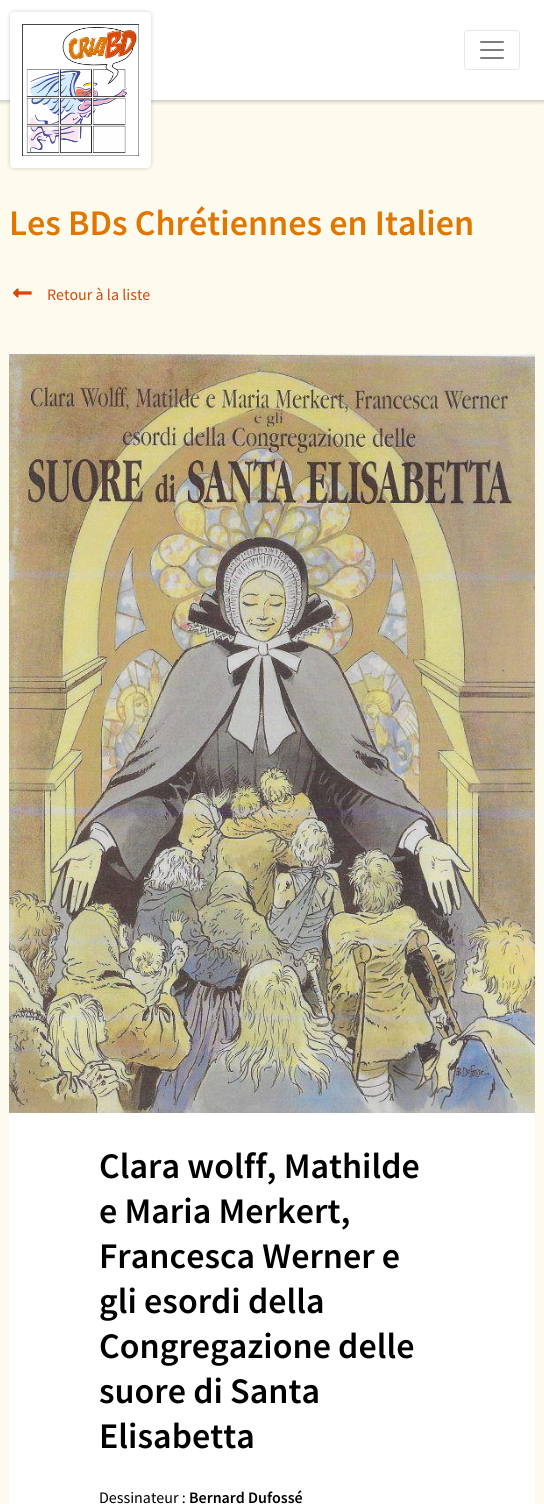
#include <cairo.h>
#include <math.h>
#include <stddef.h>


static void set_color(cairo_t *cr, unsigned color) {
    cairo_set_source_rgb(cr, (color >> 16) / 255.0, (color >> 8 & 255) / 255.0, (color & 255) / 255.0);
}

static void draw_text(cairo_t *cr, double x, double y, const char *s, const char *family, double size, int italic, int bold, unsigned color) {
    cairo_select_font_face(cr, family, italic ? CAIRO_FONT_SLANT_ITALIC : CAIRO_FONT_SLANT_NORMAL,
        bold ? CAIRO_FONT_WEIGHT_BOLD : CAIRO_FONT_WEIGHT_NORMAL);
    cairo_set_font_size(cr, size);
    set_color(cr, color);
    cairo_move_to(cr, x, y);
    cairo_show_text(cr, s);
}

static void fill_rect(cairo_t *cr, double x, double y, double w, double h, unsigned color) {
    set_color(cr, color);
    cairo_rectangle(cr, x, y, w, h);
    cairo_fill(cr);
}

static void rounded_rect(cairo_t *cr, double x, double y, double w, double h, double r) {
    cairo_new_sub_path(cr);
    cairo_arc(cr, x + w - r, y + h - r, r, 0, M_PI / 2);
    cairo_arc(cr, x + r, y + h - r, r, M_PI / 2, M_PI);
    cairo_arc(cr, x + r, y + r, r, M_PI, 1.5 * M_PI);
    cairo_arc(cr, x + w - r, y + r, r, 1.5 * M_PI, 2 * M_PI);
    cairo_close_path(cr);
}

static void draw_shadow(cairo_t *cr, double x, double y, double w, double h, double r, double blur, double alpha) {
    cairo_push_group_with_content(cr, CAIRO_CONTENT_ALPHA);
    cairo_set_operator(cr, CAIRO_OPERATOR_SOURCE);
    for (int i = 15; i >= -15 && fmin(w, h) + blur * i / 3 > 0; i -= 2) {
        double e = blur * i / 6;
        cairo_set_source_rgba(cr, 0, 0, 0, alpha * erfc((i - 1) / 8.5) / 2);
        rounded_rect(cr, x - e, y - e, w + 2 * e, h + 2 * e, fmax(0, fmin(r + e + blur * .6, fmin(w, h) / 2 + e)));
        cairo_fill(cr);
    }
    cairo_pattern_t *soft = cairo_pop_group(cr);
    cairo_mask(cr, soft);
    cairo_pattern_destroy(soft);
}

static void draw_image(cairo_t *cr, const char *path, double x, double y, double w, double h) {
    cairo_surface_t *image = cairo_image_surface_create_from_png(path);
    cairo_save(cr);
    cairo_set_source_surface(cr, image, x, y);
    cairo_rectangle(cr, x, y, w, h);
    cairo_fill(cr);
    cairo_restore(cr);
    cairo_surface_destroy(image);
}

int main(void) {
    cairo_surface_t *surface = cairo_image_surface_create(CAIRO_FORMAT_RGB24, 544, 1504);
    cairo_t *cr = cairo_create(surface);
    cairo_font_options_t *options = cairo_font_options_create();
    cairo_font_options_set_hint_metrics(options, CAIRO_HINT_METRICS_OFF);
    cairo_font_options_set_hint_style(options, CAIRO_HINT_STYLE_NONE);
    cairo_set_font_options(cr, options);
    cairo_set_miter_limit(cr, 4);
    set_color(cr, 0xFCFBED);
    cairo_paint(cr);
    set_color(cr, 0x000000);
    draw_shadow(cr, 0, 2, 544, 100, 0, 2, 0.2);
    fill_rect(cr, 0, 0, 544, 100, 0xFFFFFF);
    set_color(cr, 0x000000);
    draw_shadow(cr, 10, 12, 141, 156, 4, 2, 0.2);
    set_color(cr, 0xFFFFFF);
    rounded_rect(cr, 10, 12, 141, 156, 4);
    cairo_fill(cr);
    draw_image(cr, "assets/img1.png", 22, 24, 117, 132);
    rounded_rect(cr, 464.5, 30.5, 55, 39, 3.5);
    set_color(cr, 0xE6E6E6);
    cairo_set_line_width(cr, 1);
    cairo_stroke(cr);
    draw_image(cr, "assets/img2.png", 480, 41, 24, 18);
    draw_text(cr, 9, 235, "Les BDs Chrétiennes en Italien", "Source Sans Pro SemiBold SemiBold", 36, 0, 0, 0xE17600);
    draw_image(cr, "assets/img3.png", 13, 288, 19, 10);
    draw_text(cr, 47, 300, "Retour à la liste", "Source Sans Pro", 16, 0, 0, 0xD5480A);
    draw_image(cr, "assets/img4.png", 9, 354, 526, 759);
    set_color(cr, 0xFFFFFF);
    rounded_rect(cr, 9, 1113, 526, 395, 4);
    cairo_fill(cr);
    draw_text(cr, 99, 1178, "Clara wolff, Mathilde", "Source Sans Pro SemiBold SemiBold", 36, 0, 0, 0x000000);
    draw_text(cr, 99, 1223, "e Maria Merkert,", "Source Sans Pro SemiBold SemiBold", 36, 0, 0, 0x000000);
    draw_text(cr, 99, 1268, "Francesca Werner e", "Source Sans Pro SemiBold SemiBold", 36, 0, 0, 0x000000);
    draw_text(cr, 99, 1313, "gli esordi della", "Source Sans Pro SemiBold SemiBold", 36, 0, 0, 0x000000);
    draw_text(cr, 99, 1358, "Congregazione delle", "Source Sans Pro SemiBold SemiBold", 36, 0, 0, 0x000000);
    draw_text(cr, 99, 1403, "suore di Santa", "Source Sans Pro SemiBold SemiBold", 36, 0, 0, 0x000000);
    draw_text(cr, 99, 1448, "Elisabetta", "Source Sans Pro SemiBold SemiBold", 36, 0, 0, 0x000000);
    draw_text(cr, 99, 1503, "Dessinateur :", "Source Sans Pro", 16, 0, 0, 0x000000);
    draw_text(cr, 189, 1503, "Bernard Dufossé", "Source Sans Pro SemiBold SemiBold", 16, 0, 0, 0x000000);
    cairo_surface_write_to_png(surface, "output.png");
    cairo_font_options_destroy(options);
    cairo_destroy(cr);
    cairo_surface_destroy(surface);
    return 0;
}
